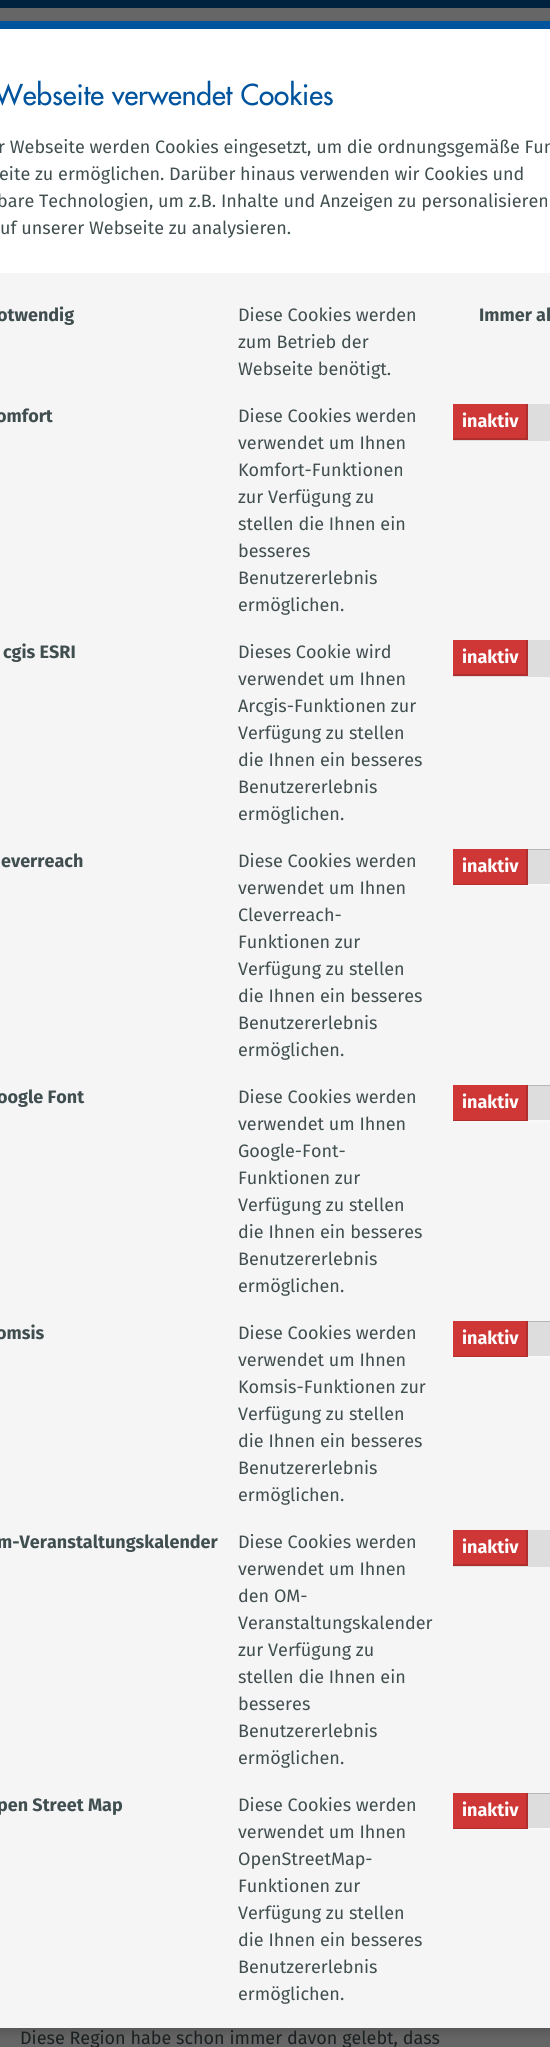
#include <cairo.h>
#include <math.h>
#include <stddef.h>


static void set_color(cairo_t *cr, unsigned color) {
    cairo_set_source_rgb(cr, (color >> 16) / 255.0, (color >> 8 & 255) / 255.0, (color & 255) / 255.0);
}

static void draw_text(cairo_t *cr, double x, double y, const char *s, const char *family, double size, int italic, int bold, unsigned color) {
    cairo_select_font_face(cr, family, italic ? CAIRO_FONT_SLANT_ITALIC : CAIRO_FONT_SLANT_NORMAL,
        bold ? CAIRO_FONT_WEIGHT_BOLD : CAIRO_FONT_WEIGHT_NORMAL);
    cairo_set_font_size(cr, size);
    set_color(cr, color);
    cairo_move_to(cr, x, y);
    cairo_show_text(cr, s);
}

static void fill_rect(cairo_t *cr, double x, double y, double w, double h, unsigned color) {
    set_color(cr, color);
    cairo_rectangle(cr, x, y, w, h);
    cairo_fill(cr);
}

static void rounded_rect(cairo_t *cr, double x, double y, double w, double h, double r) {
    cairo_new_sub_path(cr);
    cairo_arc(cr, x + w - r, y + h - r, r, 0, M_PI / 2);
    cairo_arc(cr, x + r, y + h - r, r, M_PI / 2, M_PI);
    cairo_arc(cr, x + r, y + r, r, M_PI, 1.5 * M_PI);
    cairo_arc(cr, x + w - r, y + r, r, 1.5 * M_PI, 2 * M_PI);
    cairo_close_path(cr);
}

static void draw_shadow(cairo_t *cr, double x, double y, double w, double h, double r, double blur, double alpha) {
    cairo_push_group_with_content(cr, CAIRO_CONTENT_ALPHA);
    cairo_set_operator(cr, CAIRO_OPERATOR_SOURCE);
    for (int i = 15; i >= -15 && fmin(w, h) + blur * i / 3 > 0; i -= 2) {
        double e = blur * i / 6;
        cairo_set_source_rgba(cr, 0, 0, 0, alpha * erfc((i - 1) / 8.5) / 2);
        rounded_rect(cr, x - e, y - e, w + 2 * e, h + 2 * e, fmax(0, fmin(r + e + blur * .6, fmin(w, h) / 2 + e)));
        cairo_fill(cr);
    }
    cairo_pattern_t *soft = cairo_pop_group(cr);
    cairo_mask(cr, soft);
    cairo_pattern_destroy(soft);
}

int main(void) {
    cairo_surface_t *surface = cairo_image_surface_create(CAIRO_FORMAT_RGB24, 550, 2047);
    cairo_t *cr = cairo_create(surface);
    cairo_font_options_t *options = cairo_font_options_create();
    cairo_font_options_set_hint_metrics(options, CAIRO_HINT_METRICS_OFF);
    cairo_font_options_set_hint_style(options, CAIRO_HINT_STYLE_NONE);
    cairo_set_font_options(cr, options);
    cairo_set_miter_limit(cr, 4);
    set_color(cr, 0x666666);
    cairo_paint(cr);
    set_color(cr, 0x000000);
    draw_shadow(cr, -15, 26, 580, 2007, 0, 5, 0.16);
    fill_rect(cr, 0, 29, 550, 244, 0xFFFFFF);
    fill_rect(cr, 0, 21, 550, 8, 0x00549D);
    draw_text(cr, -6, 105, "Webseite verwendet Cookies", "Futura Medium", 28, 0, 0, 0x00549D);
    draw_text(cr, -2, 153, "r Webseite werden Cookies eingesetzt, um die ordnungsgemäße Fun", "Fira Sans", 18, 0, 0, 0x414E4F);
    draw_text(cr, -1, 180, "eite zu ermöglichen. Darüber hinaus verwenden wir Cookies und", "Fira Sans", 18, 0, 0, 0x414E4F);
    draw_text(cr, -3, 207, "bare Technologien, um z.B. Inhalte und Anzeigen zu personalisieren", "Fira Sans", 18, 0, 0, 0x414E4F);
    draw_text(cr, 0, 234, "uf unserer Webseite zu analysieren.", "Fira Sans", 18, 0, 0, 0x414E4F);
    fill_rect(cr, 0, 273, 550, 1755, 0xF5F5F5);
    draw_text(cr, -3, 321, "otwendig", "Fira Sans", 18, 0, 1, 0x414E4F);
    draw_text(cr, 238, 321, "Diese Cookies werden", "Fira Sans", 18, 0, 0, 0x414E4F);
    draw_text(cr, 238, 348, "zum Betrieb der", "Fira Sans", 18, 0, 0, 0x414E4F);
    draw_text(cr, 238, 375, "Webseite benötigt.", "Fira Sans", 18, 0, 0, 0x414E4F);
    draw_text(cr, 479, 321, "Immer ak", "Fira Sans", 18, 0, 1, 0x414E4F);
    draw_text(cr, -4, 422, "omfort", "Fira Sans", 18, 0, 1, 0x414E4F);
    draw_text(cr, 238, 422, "Diese Cookies werden", "Fira Sans", 18, 0, 0, 0x414E4F);
    draw_text(cr, 238, 449, "verwendet um Ihnen", "Fira Sans", 18, 0, 0, 0x414E4F);
    draw_text(cr, 238, 476, "Komfort-Funktionen", "Fira Sans", 18, 0, 0, 0x414E4F);
    draw_text(cr, 238, 503, "zur Verfügung zu", "Fira Sans", 18, 0, 0, 0x414E4F);
    draw_text(cr, 238, 530, "stellen die Ihnen ein", "Fira Sans", 18, 0, 0, 0x414E4F);
    draw_text(cr, 238, 557, "besseres", "Fira Sans", 18, 0, 0, 0x414E4F);
    draw_text(cr, 238, 584, "Benutzererlebnis", "Fira Sans", 18, 0, 0, 0x414E4F);
    draw_text(cr, 238, 611, "ermöglichen.", "Fira Sans", 18, 0, 0, 0x414E4F);
    fill_rect(cr, 453, 404, 97, 37, 0xDDDDDD);
    fill_rect(cr, 453, 404, 73, 34, 0xCF3636);
    cairo_save(cr);
    cairo_rectangle(cr, 453, 404, 75, 36);
    cairo_clip(cr);
    set_color(cr, 0xB02E2E);
    cairo_set_fill_rule(cr, CAIRO_FILL_RULE_EVEN_ODD);
    cairo_new_path(cr);
    cairo_move_to(cr, 354, 304);
    cairo_line_to(cr, 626, 304);
    cairo_line_to(cr, 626, 538);
    cairo_line_to(cr, 354, 538);
    cairo_close_path(cr);
    cairo_move_to(cr, 452, 402);
    cairo_line_to(cr, 526, 402);
    cairo_line_to(cr, 526, 438);
    cairo_line_to(cr, 452, 438);
    cairo_close_path(cr);
    cairo_fill(cr);
    cairo_restore(cr);
    draw_text(cr, 462, 427, "inaktiv", "Fira Sans", 18, 0, 1, 0xFFFFFF);
    draw_text(cr, 3, 658, "cgis ESRI", "Fira Sans", 18, 0, 1, 0x414E4F);
    draw_text(cr, 238, 658, "Dieses Cookie wird", "Fira Sans", 18, 0, 0, 0x414E4F);
    draw_text(cr, 238, 685, "verwendet um Ihnen", "Fira Sans", 18, 0, 0, 0x414E4F);
    draw_text(cr, 238, 712, "Arcgis-Funktionen zur", "Fira Sans", 18, 0, 0, 0x414E4F);
    draw_text(cr, 238, 739, "Verfügung zu stellen", "Fira Sans", 18, 0, 0, 0x414E4F);
    draw_text(cr, 238, 766, "die Ihnen ein besseres", "Fira Sans", 18, 0, 0, 0x414E4F);
    draw_text(cr, 238, 793, "Benutzererlebnis", "Fira Sans", 18, 0, 0, 0x414E4F);
    draw_text(cr, 238, 820, "ermöglichen.", "Fira Sans", 18, 0, 0, 0x414E4F);
    fill_rect(cr, 453, 640, 97, 37, 0xDDDDDD);
    fill_rect(cr, 453, 640, 73, 34, 0xCF3636);
    cairo_save(cr);
    cairo_rectangle(cr, 453, 640, 75, 36);
    cairo_clip(cr);
    set_color(cr, 0xB02E2E);
    cairo_set_fill_rule(cr, CAIRO_FILL_RULE_EVEN_ODD);
    cairo_new_path(cr);
    cairo_move_to(cr, 354, 540);
    cairo_line_to(cr, 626, 540);
    cairo_line_to(cr, 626, 774);
    cairo_line_to(cr, 354, 774);
    cairo_close_path(cr);
    cairo_move_to(cr, 452, 638);
    cairo_line_to(cr, 526, 638);
    cairo_line_to(cr, 526, 674);
    cairo_line_to(cr, 452, 674);
    cairo_close_path(cr);
    cairo_fill(cr);
    cairo_restore(cr);
    draw_text(cr, 462, 663, "inaktiv", "Fira Sans", 18, 0, 1, 0xFFFFFF);
    draw_text(cr, 1, 867, "everreach", "Fira Sans", 18, 0, 1, 0x414E4F);
    draw_text(cr, 238, 867, "Diese Cookies werden", "Fira Sans", 18, 0, 0, 0x414E4F);
    draw_text(cr, 238, 894, "verwendet um Ihnen", "Fira Sans", 18, 0, 0, 0x414E4F);
    draw_text(cr, 238, 921, "Cleverreach-", "Fira Sans", 18, 0, 0, 0x414E4F);
    draw_text(cr, 238, 948, "Funktionen zur", "Fira Sans", 18, 0, 0, 0x414E4F);
    draw_text(cr, 238, 975, "Verfügung zu stellen", "Fira Sans", 18, 0, 0, 0x414E4F);
    draw_text(cr, 238, 1002, "die Ihnen ein besseres", "Fira Sans", 18, 0, 0, 0x414E4F);
    draw_text(cr, 238, 1029, "Benutzererlebnis", "Fira Sans", 18, 0, 0, 0x414E4F);
    draw_text(cr, 238, 1056, "ermöglichen.", "Fira Sans", 18, 0, 0, 0x414E4F);
    fill_rect(cr, 453, 850, 97, 36, 0xDDDDDD);
    cairo_save(cr);
    cairo_rectangle(cr, 453, 849, 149, 36);
    cairo_clip(cr);
    set_color(cr, 0xB7B7B7);
    cairo_set_fill_rule(cr, CAIRO_FILL_RULE_EVEN_ODD);
    cairo_new_path(cr);
    cairo_move_to(cr, 354, 750);
    cairo_line_to(cr, 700, 750);
    cairo_line_to(cr, 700, 984);
    cairo_line_to(cr, 354, 984);
    cairo_close_path(cr);
    cairo_move_to(cr, 454, 850);
    cairo_line_to(cr, 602, 850);
    cairo_line_to(cr, 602, 886);
    cairo_line_to(cr, 454, 886);
    cairo_close_path(cr);
    cairo_fill(cr);
    cairo_restore(cr);
    cairo_set_source_rgba(cr, 1, 1, 1, 0.8);
    cairo_rectangle(cr, 452, 884, 98, 2);
    cairo_fill(cr);
    fill_rect(cr, 453, 849, 73, 35, 0xCF3636);
    cairo_save(cr);
    cairo_rectangle(cr, 453, 849, 75, 36);
    cairo_clip(cr);
    set_color(cr, 0xB02E2E);
    cairo_set_fill_rule(cr, CAIRO_FILL_RULE_EVEN_ODD);
    cairo_new_path(cr);
    cairo_move_to(cr, 354, 750);
    cairo_line_to(cr, 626, 750);
    cairo_line_to(cr, 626, 984);
    cairo_line_to(cr, 354, 984);
    cairo_close_path(cr);
    cairo_move_to(cr, 452, 848);
    cairo_line_to(cr, 526, 848);
    cairo_line_to(cr, 526, 884);
    cairo_line_to(cr, 452, 884);
    cairo_close_path(cr);
    cairo_fill(cr);
    cairo_restore(cr);
    draw_text(cr, 462, 872, "inaktiv", "Fira Sans", 18, 0, 1, 0xFFFFFF);
    draw_text(cr, -3, 1103, "oogle Font", "Fira Sans", 18, 0, 1, 0x414E4F);
    draw_text(cr, 238, 1103, "Diese Cookies werden", "Fira Sans", 18, 0, 0, 0x414E4F);
    draw_text(cr, 238, 1130, "verwendet um Ihnen", "Fira Sans", 18, 0, 0, 0x414E4F);
    draw_text(cr, 238, 1157, "Google-Font-", "Fira Sans", 18, 0, 0, 0x414E4F);
    draw_text(cr, 238, 1184, "Funktionen zur", "Fira Sans", 18, 0, 0, 0x414E4F);
    draw_text(cr, 238, 1211, "Verfügung zu stellen", "Fira Sans", 18, 0, 0, 0x414E4F);
    draw_text(cr, 238, 1238, "die Ihnen ein besseres", "Fira Sans", 18, 0, 0, 0x414E4F);
    draw_text(cr, 238, 1265, "Benutzererlebnis", "Fira Sans", 18, 0, 0, 0x414E4F);
    draw_text(cr, 238, 1292, "ermöglichen.", "Fira Sans", 18, 0, 0, 0x414E4F);
    fill_rect(cr, 453, 1086, 97, 36, 0xDDDDDD);
    cairo_save(cr);
    cairo_rectangle(cr, 453, 1085, 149, 36);
    cairo_clip(cr);
    set_color(cr, 0xB7B7B7);
    cairo_set_fill_rule(cr, CAIRO_FILL_RULE_EVEN_ODD);
    cairo_new_path(cr);
    cairo_move_to(cr, 354, 986);
    cairo_line_to(cr, 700, 986);
    cairo_line_to(cr, 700, 1220);
    cairo_line_to(cr, 354, 1220);
    cairo_close_path(cr);
    cairo_move_to(cr, 454, 1086);
    cairo_line_to(cr, 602, 1086);
    cairo_line_to(cr, 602, 1122);
    cairo_line_to(cr, 454, 1122);
    cairo_close_path(cr);
    cairo_fill(cr);
    cairo_restore(cr);
    cairo_set_source_rgba(cr, 1, 1, 1, 0.8);
    cairo_rectangle(cr, 452, 1120, 98, 2);
    cairo_fill(cr);
    fill_rect(cr, 453, 1085, 73, 35, 0xCF3636);
    cairo_save(cr);
    cairo_rectangle(cr, 453, 1085, 75, 36);
    cairo_clip(cr);
    set_color(cr, 0xB02E2E);
    cairo_set_fill_rule(cr, CAIRO_FILL_RULE_EVEN_ODD);
    cairo_new_path(cr);
    cairo_move_to(cr, 354, 986);
    cairo_line_to(cr, 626, 986);
    cairo_line_to(cr, 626, 1220);
    cairo_line_to(cr, 354, 1220);
    cairo_close_path(cr);
    cairo_move_to(cr, 452, 1084);
    cairo_line_to(cr, 526, 1084);
    cairo_line_to(cr, 526, 1120);
    cairo_line_to(cr, 452, 1120);
    cairo_close_path(cr);
    cairo_fill(cr);
    cairo_restore(cr);
    draw_text(cr, 462, 1108, "inaktiv", "Fira Sans", 18, 0, 1, 0xFFFFFF);
    draw_text(cr, -4, 1339, "omsis", "Fira Sans", 18, 0, 1, 0x414E4F);
    draw_text(cr, 238, 1339, "Diese Cookies werden", "Fira Sans", 18, 0, 0, 0x414E4F);
    draw_text(cr, 238, 1366, "verwendet um Ihnen", "Fira Sans", 18, 0, 0, 0x414E4F);
    draw_text(cr, 238, 1393, "Komsis-Funktionen zur", "Fira Sans", 18, 0, 0, 0x414E4F);
    draw_text(cr, 238, 1420, "Verfügung zu stellen", "Fira Sans", 18, 0, 0, 0x414E4F);
    draw_text(cr, 238, 1447, "die Ihnen ein besseres", "Fira Sans", 18, 0, 0, 0x414E4F);
    draw_text(cr, 238, 1474, "Benutzererlebnis", "Fira Sans", 18, 0, 0, 0x414E4F);
    draw_text(cr, 238, 1501, "ermöglichen.", "Fira Sans", 18, 0, 0, 0x414E4F);
    fill_rect(cr, 453, 1322, 97, 36, 0xDDDDDD);
    cairo_save(cr);
    cairo_rectangle(cr, 453, 1321, 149, 36);
    cairo_clip(cr);
    set_color(cr, 0xB7B7B7);
    cairo_set_fill_rule(cr, CAIRO_FILL_RULE_EVEN_ODD);
    cairo_new_path(cr);
    cairo_move_to(cr, 354, 1222);
    cairo_line_to(cr, 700, 1222);
    cairo_line_to(cr, 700, 1456);
    cairo_line_to(cr, 354, 1456);
    cairo_close_path(cr);
    cairo_move_to(cr, 454, 1322);
    cairo_line_to(cr, 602, 1322);
    cairo_line_to(cr, 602, 1358);
    cairo_line_to(cr, 454, 1358);
    cairo_close_path(cr);
    cairo_fill(cr);
    cairo_restore(cr);
    cairo_set_source_rgba(cr, 1, 1, 1, 0.8);
    cairo_rectangle(cr, 452, 1356, 98, 2);
    cairo_fill(cr);
    fill_rect(cr, 453, 1321, 73, 35, 0xCF3636);
    cairo_save(cr);
    cairo_rectangle(cr, 453, 1321, 75, 36);
    cairo_clip(cr);
    set_color(cr, 0xB02E2E);
    cairo_set_fill_rule(cr, CAIRO_FILL_RULE_EVEN_ODD);
    cairo_new_path(cr);
    cairo_move_to(cr, 354, 1222);
    cairo_line_to(cr, 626, 1222);
    cairo_line_to(cr, 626, 1456);
    cairo_line_to(cr, 354, 1456);
    cairo_close_path(cr);
    cairo_move_to(cr, 452, 1320);
    cairo_line_to(cr, 526, 1320);
    cairo_line_to(cr, 526, 1356);
    cairo_line_to(cr, 452, 1356);
    cairo_close_path(cr);
    cairo_fill(cr);
    cairo_restore(cr);
    draw_text(cr, 462, 1344, "inaktiv", "Fira Sans", 18, 0, 1, 0xFFFFFF);
    draw_text(cr, -3, 1548, "m-Veranstaltungskalender", "Fira Sans", 18, 0, 1, 0x414E4F);
    draw_text(cr, 238, 1548, "Diese Cookies werden", "Fira Sans", 18, 0, 0, 0x414E4F);
    draw_text(cr, 238, 1575, "verwendet um Ihnen", "Fira Sans", 18, 0, 0, 0x414E4F);
    draw_text(cr, 238, 1602, "den OM-", "Fira Sans", 18, 0, 0, 0x414E4F);
    draw_text(cr, 238, 1629, "Veranstaltungskalender", "Fira Sans", 18, 0, 0, 0x414E4F);
    draw_text(cr, 238, 1656, "zur Verfügung zu", "Fira Sans", 18, 0, 0, 0x414E4F);
    draw_text(cr, 238, 1683, "stellen die Ihnen ein", "Fira Sans", 18, 0, 0, 0x414E4F);
    draw_text(cr, 238, 1710, "besseres", "Fira Sans", 18, 0, 0, 0x414E4F);
    draw_text(cr, 238, 1737, "Benutzererlebnis", "Fira Sans", 18, 0, 0, 0x414E4F);
    draw_text(cr, 238, 1764, "ermöglichen.", "Fira Sans", 18, 0, 0, 0x414E4F);
    fill_rect(cr, 453, 1530, 97, 37, 0xDDDDDD);
    fill_rect(cr, 453, 1530, 73, 34, 0xCF3636);
    cairo_save(cr);
    cairo_rectangle(cr, 453, 1530, 75, 36);
    cairo_clip(cr);
    set_color(cr, 0xB02E2E);
    cairo_set_fill_rule(cr, CAIRO_FILL_RULE_EVEN_ODD);
    cairo_new_path(cr);
    cairo_move_to(cr, 354, 1430);
    cairo_line_to(cr, 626, 1430);
    cairo_line_to(cr, 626, 1664);
    cairo_line_to(cr, 354, 1664);
    cairo_close_path(cr);
    cairo_move_to(cr, 452, 1528);
    cairo_line_to(cr, 526, 1528);
    cairo_line_to(cr, 526, 1564);
    cairo_line_to(cr, 452, 1564);
    cairo_close_path(cr);
    cairo_fill(cr);
    cairo_restore(cr);
    draw_text(cr, 462, 1553, "inaktiv", "Fira Sans", 18, 0, 1, 0xFFFFFF);
    draw_text(cr, -3, 1811, "pen Street Map", "Fira Sans", 18, 0, 1, 0x414E4F);
    draw_text(cr, 238, 1811, "Diese Cookies werden", "Fira Sans", 18, 0, 0, 0x414E4F);
    draw_text(cr, 238, 1838, "verwendet um Ihnen", "Fira Sans", 18, 0, 0, 0x414E4F);
    draw_text(cr, 238, 1865, "OpenStreetMap-", "Fira Sans", 18, 0, 0, 0x414E4F);
    draw_text(cr, 238, 1892, "Funktionen zur", "Fira Sans", 18, 0, 0, 0x414E4F);
    draw_text(cr, 238, 1919, "Verfügung zu stellen", "Fira Sans", 18, 0, 0, 0x414E4F);
    draw_text(cr, 238, 1946, "die Ihnen ein besseres", "Fira Sans", 18, 0, 0, 0x414E4F);
    draw_text(cr, 238, 1973, "Benutzererlebnis", "Fira Sans", 18, 0, 0, 0x414E4F);
    draw_text(cr, 238, 2000, "ermöglichen.", "Fira Sans", 18, 0, 0, 0x414E4F);
    fill_rect(cr, 453, 1794, 97, 36, 0xDDDDDD);
    cairo_save(cr);
    cairo_rectangle(cr, 453, 1793, 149, 36);
    cairo_clip(cr);
    set_color(cr, 0xB7B7B7);
    cairo_set_fill_rule(cr, CAIRO_FILL_RULE_EVEN_ODD);
    cairo_new_path(cr);
    cairo_move_to(cr, 354, 1694);
    cairo_line_to(cr, 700, 1694);
    cairo_line_to(cr, 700, 1928);
    cairo_line_to(cr, 354, 1928);
    cairo_close_path(cr);
    cairo_move_to(cr, 454, 1794);
    cairo_line_to(cr, 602, 1794);
    cairo_line_to(cr, 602, 1830);
    cairo_line_to(cr, 454, 1830);
    cairo_close_path(cr);
    cairo_fill(cr);
    cairo_restore(cr);
    cairo_set_source_rgba(cr, 1, 1, 1, 0.8);
    cairo_rectangle(cr, 452, 1828, 98, 2);
    cairo_fill(cr);
    fill_rect(cr, 453, 1793, 73, 35, 0xCF3636);
    cairo_save(cr);
    cairo_rectangle(cr, 453, 1793, 75, 36);
    cairo_clip(cr);
    set_color(cr, 0xB02E2E);
    cairo_set_fill_rule(cr, CAIRO_FILL_RULE_EVEN_ODD);
    cairo_new_path(cr);
    cairo_move_to(cr, 354, 1694);
    cairo_line_to(cr, 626, 1694);
    cairo_line_to(cr, 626, 1928);
    cairo_line_to(cr, 354, 1928);
    cairo_close_path(cr);
    cairo_move_to(cr, 452, 1792);
    cairo_line_to(cr, 526, 1792);
    cairo_line_to(cr, 526, 1828);
    cairo_line_to(cr, 452, 1828);
    cairo_close_path(cr);
    cairo_fill(cr);
    cairo_restore(cr);
    draw_text(cr, 462, 1816, "inaktiv", "Fira Sans", 18, 0, 1, 0xFFFFFF);
    fill_rect(cr, 0, 0, 550, 8, 0x00223F);
    draw_text(cr, 20, 2044, "Diese Region habe schon immer davon gelebt, dass", "Fira Sans", 18, 0, 0, 0x1A1F20);
    cairo_surface_write_to_png(surface, "output.png");
    cairo_font_options_destroy(options);
    cairo_destroy(cr);
    cairo_surface_destroy(surface);
    return 0;
}
